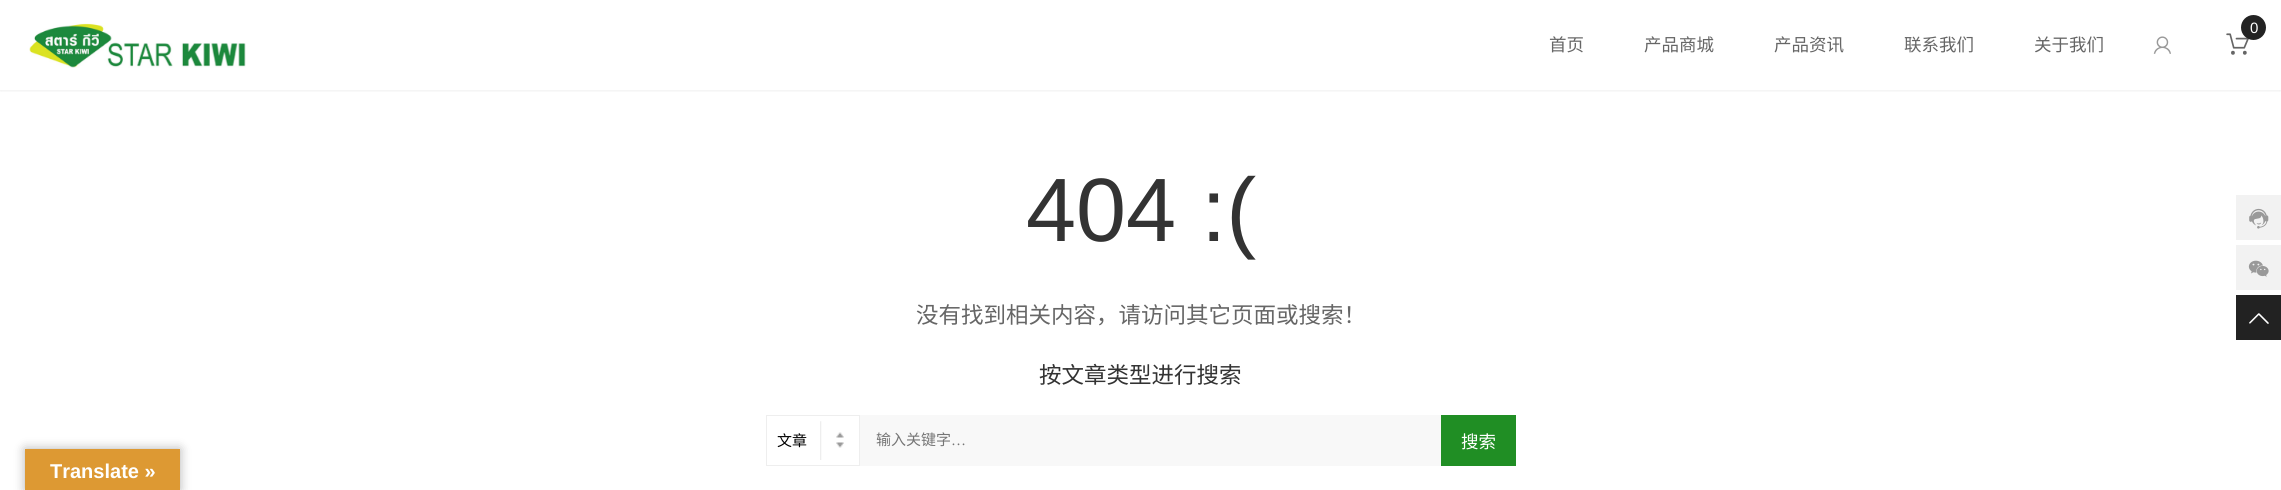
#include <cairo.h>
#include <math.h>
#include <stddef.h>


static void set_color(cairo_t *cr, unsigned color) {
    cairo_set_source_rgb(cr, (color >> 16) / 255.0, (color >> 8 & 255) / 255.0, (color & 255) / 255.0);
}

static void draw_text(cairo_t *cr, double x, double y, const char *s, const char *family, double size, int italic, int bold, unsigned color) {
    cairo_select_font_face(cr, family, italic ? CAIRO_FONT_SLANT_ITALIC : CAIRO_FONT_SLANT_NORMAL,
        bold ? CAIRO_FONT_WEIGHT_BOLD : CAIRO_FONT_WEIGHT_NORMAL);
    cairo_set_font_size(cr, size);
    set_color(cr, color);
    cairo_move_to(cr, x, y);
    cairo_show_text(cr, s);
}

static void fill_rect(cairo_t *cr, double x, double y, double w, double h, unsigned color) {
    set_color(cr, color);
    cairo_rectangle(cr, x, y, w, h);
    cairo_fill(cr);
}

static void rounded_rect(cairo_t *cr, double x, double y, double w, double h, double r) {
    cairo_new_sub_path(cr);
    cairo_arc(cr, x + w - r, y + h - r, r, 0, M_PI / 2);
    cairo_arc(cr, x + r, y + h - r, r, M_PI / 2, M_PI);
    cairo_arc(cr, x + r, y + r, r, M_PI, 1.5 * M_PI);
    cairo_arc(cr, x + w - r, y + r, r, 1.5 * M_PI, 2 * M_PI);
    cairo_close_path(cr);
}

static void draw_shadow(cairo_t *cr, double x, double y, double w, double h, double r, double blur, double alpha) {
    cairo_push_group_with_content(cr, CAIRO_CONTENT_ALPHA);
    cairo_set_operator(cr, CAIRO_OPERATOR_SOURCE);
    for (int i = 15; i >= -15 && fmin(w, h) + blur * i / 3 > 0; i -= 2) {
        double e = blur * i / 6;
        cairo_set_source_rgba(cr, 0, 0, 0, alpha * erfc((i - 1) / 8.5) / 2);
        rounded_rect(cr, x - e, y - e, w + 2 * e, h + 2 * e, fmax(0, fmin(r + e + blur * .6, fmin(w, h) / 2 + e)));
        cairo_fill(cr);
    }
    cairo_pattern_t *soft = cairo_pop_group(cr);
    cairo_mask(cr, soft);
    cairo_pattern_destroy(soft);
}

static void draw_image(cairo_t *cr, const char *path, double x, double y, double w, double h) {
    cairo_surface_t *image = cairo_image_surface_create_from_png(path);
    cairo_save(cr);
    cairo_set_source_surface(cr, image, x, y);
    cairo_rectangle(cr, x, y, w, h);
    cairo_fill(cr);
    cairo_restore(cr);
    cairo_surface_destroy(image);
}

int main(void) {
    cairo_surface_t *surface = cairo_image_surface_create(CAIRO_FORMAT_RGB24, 2281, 490);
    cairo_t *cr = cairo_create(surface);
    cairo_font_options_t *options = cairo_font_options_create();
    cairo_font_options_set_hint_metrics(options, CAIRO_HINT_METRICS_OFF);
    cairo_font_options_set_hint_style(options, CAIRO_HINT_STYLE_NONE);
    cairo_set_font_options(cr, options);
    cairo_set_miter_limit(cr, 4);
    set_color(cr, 0xFFFFFF);
    cairo_paint(cr);
    cairo_save(cr);
    cairo_rectangle(cr, 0, 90, 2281, 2);
    cairo_clip(cr);
    set_color(cr, 0x000000);
    draw_shadow(cr, 0, 0, 2281, 90, 0, 2.5, 0.1);
    cairo_restore(cr);
    draw_image(cr, "assets/img1.png", 2226, 33, 23, 22);
    set_color(cr, 0x232323);
    cairo_arc(cr, 2253.5, 27.5, 12.5, 0, 2 * M_PI);
    cairo_fill(cr);
    draw_text(cr, 2250, 33, "0", "Liberation Sans", 15, 0, 0, 0xFFFFFF);
    fill_rect(cr, 2236, 195, 45, 45, 0xF2F2F2);
    draw_image(cr, "assets/img2.png", 2249, 208, 20, 21);
    fill_rect(cr, 2236, 245, 45, 45, 0xF2F2F2);
    draw_image(cr, "assets/img3.png", 2248, 260, 21, 17);
    fill_rect(cr, 2236, 295, 45, 45, 0x222222);
    draw_image(cr, "assets/img4.png", 2249, 313, 20, 11);
    draw_image(cr, "assets/img5.png", 29, 23, 217, 45);
    draw_text(cr, 1549, 51, "首页", "Noto Sans CJK SC", 17.5, 0, 0, 0x666666);
    draw_text(cr, 1644, 51, "产品商城", "Noto Sans CJK SC", 17.5, 0, 0, 0x666666);
    draw_text(cr, 1774, 51, "产品资讯", "Noto Sans CJK SC", 17.5, 0, 0, 0x666666);
    draw_text(cr, 1904, 51, "联系我们", "Noto Sans CJK SC", 17.5, 0, 0, 0x666666);
    draw_text(cr, 2034, 51, "关于我们", "Noto Sans CJK SC", 17.5, 0, 0, 0x666666);
    draw_image(cr, "assets/img6.png", 2153, 36, 18, 18);
    draw_text(cr, 1026, 241, "404 :(", "Liberation Sans", 90, 0, 0, 0x333333);
    draw_text(cr, 916, 323, "没有找到相关内容，请访问其它页面或搜索！", "Noto Sans CJK SC", 22.5, 0, 0, 0x666666);
    draw_text(cr, 1039, 383, "按文章类型进行搜索", "Noto Sans CJK SC", 22.5, 0, 0, 0x333333);
    draw_image(cr, "assets/img7.png", 820, 421, 24, 39);
    cairo_rectangle(cr, 766.5, 415.5, 93, 50);
    set_color(cr, 0xEEEEEE);
    cairo_set_line_width(cr, 1);
    cairo_stroke(cr);
    draw_text(cr, 777, 446, "文章", "Noto Sans CJK SC", 15, 0, 0, 0x000000);
    fill_rect(cr, 860, 415, 581, 51, 0xF8F8F8);
    draw_text(cr, 876, 445, "输入关键字", "Noto Sans CJK SC", 15, 0, 0, 0x757575);
    draw_text(cr, 951, 445, "…", "Liberation Serif", 15, 0, 0, 0x757575);
    fill_rect(cr, 1441, 415, 75, 51, 0x208E24);
    draw_text(cr, 1461, 448, "搜索", "Noto Sans CJK SC", 17.5, 0, 0, 0xFFFFFF);
    set_color(cr, 0x000000);
    draw_shadow(cr, 25, 449, 155, 41, 0, 5.5, 0.3);
    fill_rect(cr, 25, 449, 155, 41, 0xDD9933);
    draw_text(cr, 50, 478, "Translate »", "Liberation Sans", 20, 0, 1, 0xFFFFFF);
    cairo_surface_write_to_png(surface, "output.png");
    cairo_font_options_destroy(options);
    cairo_destroy(cr);
    cairo_surface_destroy(surface);
    return 0;
}
